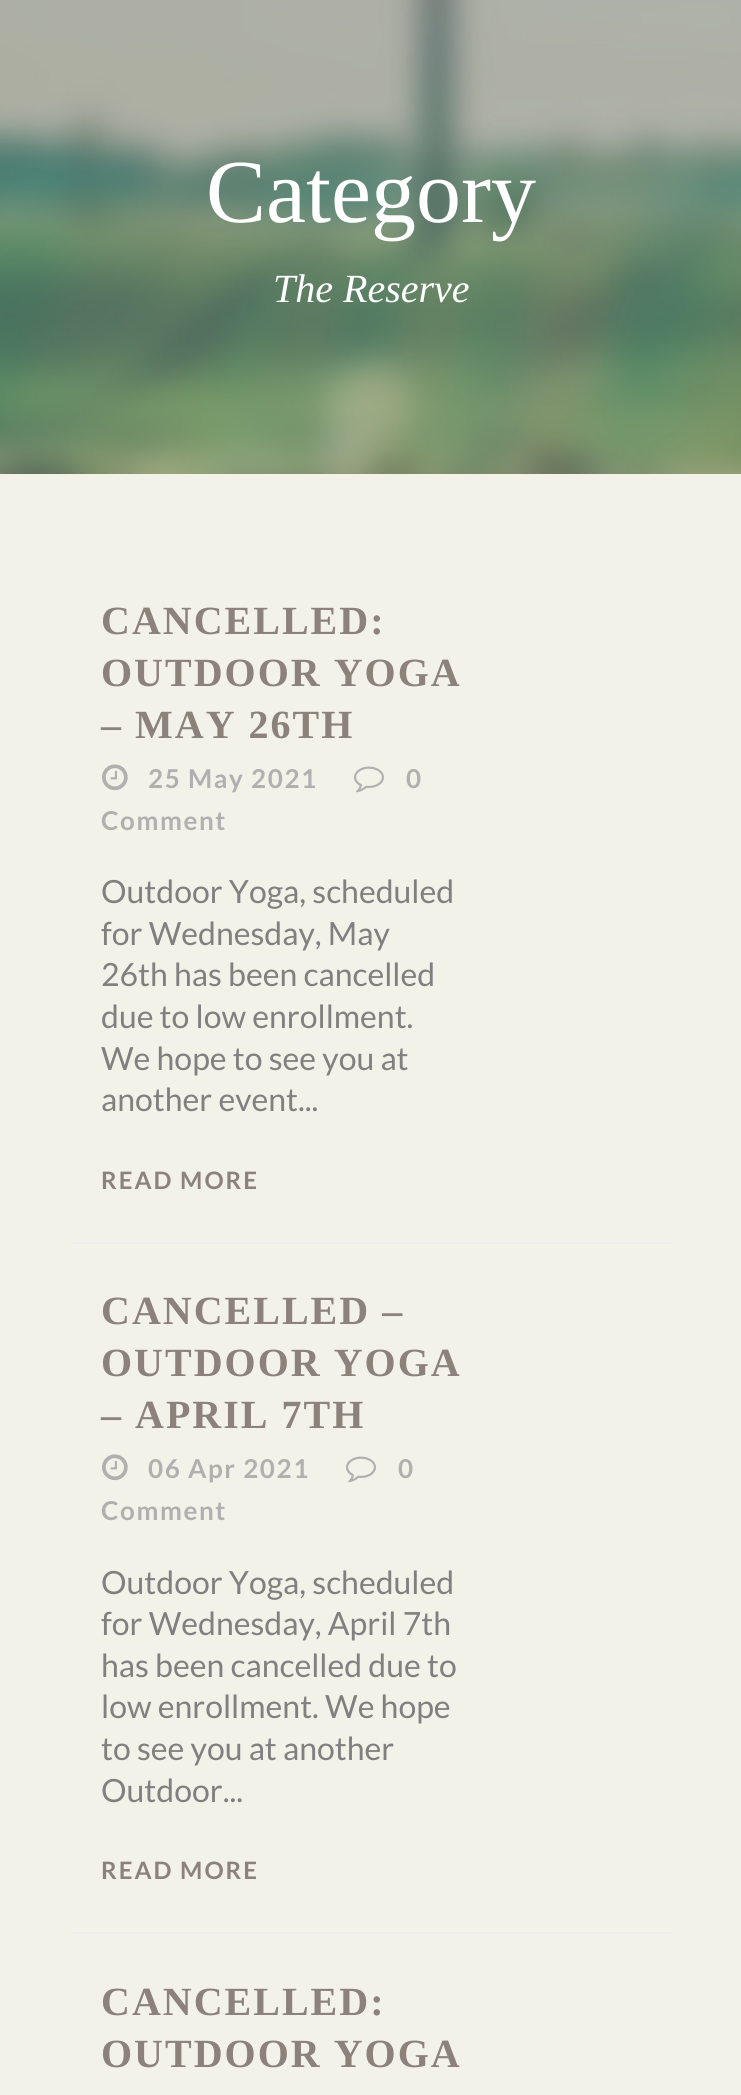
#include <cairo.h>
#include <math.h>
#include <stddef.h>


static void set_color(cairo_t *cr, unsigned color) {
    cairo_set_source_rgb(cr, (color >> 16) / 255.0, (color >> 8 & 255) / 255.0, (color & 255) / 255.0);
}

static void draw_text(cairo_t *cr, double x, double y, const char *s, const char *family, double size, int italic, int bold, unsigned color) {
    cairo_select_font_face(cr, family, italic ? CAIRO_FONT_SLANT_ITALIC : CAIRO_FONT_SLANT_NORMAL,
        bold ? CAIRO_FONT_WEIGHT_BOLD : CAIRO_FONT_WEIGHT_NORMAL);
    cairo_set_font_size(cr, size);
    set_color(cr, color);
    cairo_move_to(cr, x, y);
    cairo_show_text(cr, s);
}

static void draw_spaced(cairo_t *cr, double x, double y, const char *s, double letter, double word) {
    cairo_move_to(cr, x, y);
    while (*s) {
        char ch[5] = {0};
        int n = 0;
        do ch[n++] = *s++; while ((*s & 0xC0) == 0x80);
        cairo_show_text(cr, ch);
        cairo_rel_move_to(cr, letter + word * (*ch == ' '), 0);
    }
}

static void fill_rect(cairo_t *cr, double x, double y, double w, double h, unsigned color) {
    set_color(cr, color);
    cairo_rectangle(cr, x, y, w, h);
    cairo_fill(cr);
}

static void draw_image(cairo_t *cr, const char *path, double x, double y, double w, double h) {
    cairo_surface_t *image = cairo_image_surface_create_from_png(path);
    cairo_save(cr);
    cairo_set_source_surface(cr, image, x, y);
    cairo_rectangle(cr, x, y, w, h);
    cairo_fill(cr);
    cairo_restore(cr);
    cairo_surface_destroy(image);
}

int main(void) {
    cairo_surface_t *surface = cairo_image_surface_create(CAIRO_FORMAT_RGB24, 741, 2095);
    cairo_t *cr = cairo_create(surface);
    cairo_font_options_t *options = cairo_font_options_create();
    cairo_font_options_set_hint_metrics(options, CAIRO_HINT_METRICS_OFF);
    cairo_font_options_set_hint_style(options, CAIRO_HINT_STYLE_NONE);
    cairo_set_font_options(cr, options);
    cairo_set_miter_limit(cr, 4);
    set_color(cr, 0xFFFFFF);
    cairo_paint(cr);
    draw_image(cr, "assets/img1.png", 0, 0, 741, 474);
    draw_text(cr, 206, 222, "Category", "Liberation Serif", 90, 0, 0, 0xFFFFFF);
    draw_text(cr, 273, 302, "The Reserve", "Liberation Serif", 40, 1, 0, 0xFFFFFF);
    fill_rect(cr, 0, 474, 741, 1621, 0xF2F2E9);
    fill_rect(cr, 72, 1242, 600, 2, 0xEEEEEE);
    cairo_select_font_face(cr, "Liberation Serif", CAIRO_FONT_SLANT_NORMAL, CAIRO_FONT_WEIGHT_BOLD);
    set_color(cr, 0x8C8279);
    draw_spaced(cr, 101, 634, "CANCELLED:", 2, 0);
    draw_spaced(cr, 101, 686, "OUTDOOR YOGA", 2, 0);
    draw_spaced(cr, 101, 738, "– MAY 26TH", 2, 0);
    draw_image(cr, "assets/img2.png", 354, 766, 30, 27);
    cairo_select_font_face(cr, "Lato", CAIRO_FONT_SLANT_NORMAL, CAIRO_FONT_WEIGHT_BOLD);
    cairo_set_font_size(cr, 26);
    set_color(cr, 0xB0B0B0);
    draw_spaced(cr, 406, 788, "0", 1.6, 0);
    draw_spaced(cr, 101, 830, "Comment", 1.6, 0);
    draw_image(cr, "assets/img3.png", 102, 764, 26, 27);
    draw_spaced(cr, 148, 788, "25 May 2021", 1.6, 0);
    draw_text(cr, 101, 903, "Outdoor Yoga, scheduled", "Lato", 32, 0, 0, 0x808080);
    draw_text(cr, 101, 945, "for Wednesday, May", "Lato", 32, 0, 0, 0x808080);
    draw_text(cr, 101, 986, "26th has been cancelled", "Lato", 32, 0, 0, 0x808080);
    draw_text(cr, 101, 1028, "due to low enrollment.", "Lato", 32, 0, 0, 0x808080);
    draw_text(cr, 101, 1070, "We hope to see you at", "Lato", 32, 0, 0, 0x808080);
    draw_text(cr, 101, 1111, "another event...", "Lato", 32, 0, 0, 0x808080);
    cairo_select_font_face(cr, "Lato", CAIRO_FONT_SLANT_NORMAL, CAIRO_FONT_WEIGHT_BOLD);
    cairo_set_font_size(cr, 24);
    set_color(cr, 0x8C8279);
    draw_spaced(cr, 101, 1189, "READ MORE", 2, 0);
    fill_rect(cr, 72, 1932, 600, 2, 0xEEEEEE);
    cairo_select_font_face(cr, "Liberation Serif", CAIRO_FONT_SLANT_NORMAL, CAIRO_FONT_WEIGHT_BOLD);
    cairo_set_font_size(cr, 40);
    set_color(cr, 0x8C8279);
    draw_spaced(cr, 101, 1324, "CANCELLED –", 2, 0);
    draw_spaced(cr, 101, 1376, "OUTDOOR YOGA", 2, 0);
    draw_spaced(cr, 101, 1428, "– APRIL 7TH", 2, 0);
    draw_image(cr, "assets/img2.png", 346, 1456, 30, 27);
    cairo_select_font_face(cr, "Lato", CAIRO_FONT_SLANT_NORMAL, CAIRO_FONT_WEIGHT_BOLD);
    cairo_set_font_size(cr, 26);
    set_color(cr, 0xB0B0B0);
    draw_spaced(cr, 398, 1478, "0", 1.6, 0);
    draw_spaced(cr, 101, 1520, "Comment", 1.6, 0);
    draw_image(cr, "assets/img3.png", 102, 1454, 26, 27);
    draw_spaced(cr, 148, 1478, "06 Apr 2021", 1.6, 0);
    draw_text(cr, 101, 1594, "Outdoor Yoga, scheduled", "Lato", 32, 0, 0, 0x808080);
    draw_text(cr, 101, 1635, "for Wednesday, April 7th", "Lato", 32, 0, 0, 0x808080);
    draw_text(cr, 101, 1677, "has been cancelled due to", "Lato", 32, 0, 0, 0x808080);
    draw_text(cr, 101, 1718, "low enrollment. We hope", "Lato", 32, 0, 0, 0x808080);
    draw_text(cr, 101, 1760, "to see you at another", "Lato", 32, 0, 0, 0x808080);
    draw_text(cr, 101, 1802, "Outdoor...", "Lato", 32, 0, 0, 0x808080);
    cairo_select_font_face(cr, "Lato", CAIRO_FONT_SLANT_NORMAL, CAIRO_FONT_WEIGHT_BOLD);
    cairo_set_font_size(cr, 24);
    set_color(cr, 0x8C8279);
    draw_spaced(cr, 101, 1879, "READ MORE", 2, 0);
    cairo_select_font_face(cr, "Liberation Serif", CAIRO_FONT_SLANT_NORMAL, CAIRO_FONT_WEIGHT_BOLD);
    cairo_set_font_size(cr, 40);
    draw_spaced(cr, 101, 2015, "CANCELLED:", 2, 0);
    draw_spaced(cr, 101, 2067, "OUTDOOR YOGA", 2, 0);
    cairo_surface_write_to_png(surface, "output.png");
    cairo_font_options_destroy(options);
    cairo_destroy(cr);
    cairo_surface_destroy(surface);
    return 0;
}
